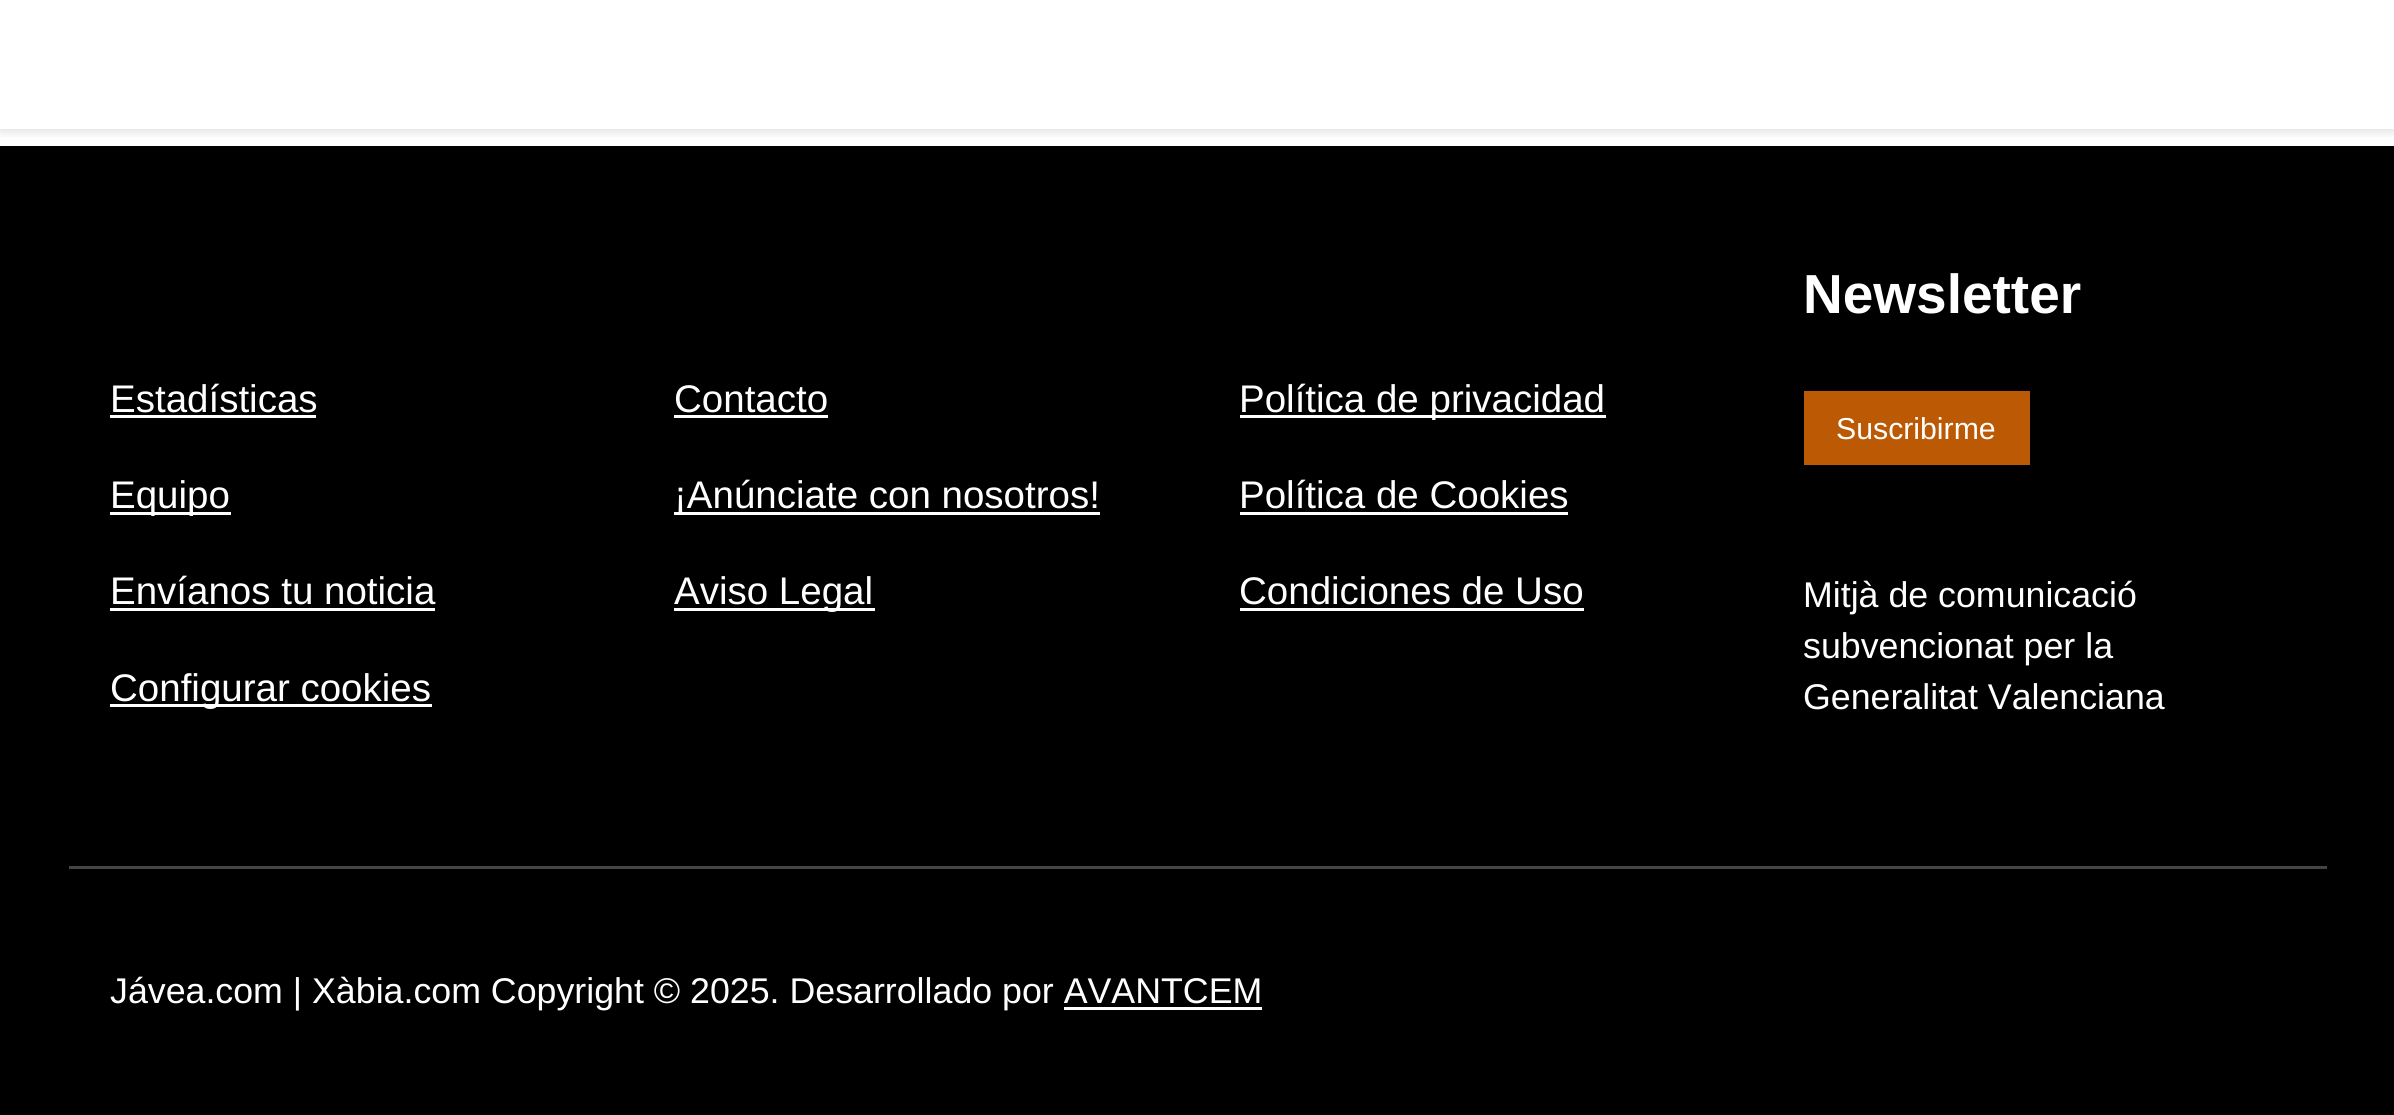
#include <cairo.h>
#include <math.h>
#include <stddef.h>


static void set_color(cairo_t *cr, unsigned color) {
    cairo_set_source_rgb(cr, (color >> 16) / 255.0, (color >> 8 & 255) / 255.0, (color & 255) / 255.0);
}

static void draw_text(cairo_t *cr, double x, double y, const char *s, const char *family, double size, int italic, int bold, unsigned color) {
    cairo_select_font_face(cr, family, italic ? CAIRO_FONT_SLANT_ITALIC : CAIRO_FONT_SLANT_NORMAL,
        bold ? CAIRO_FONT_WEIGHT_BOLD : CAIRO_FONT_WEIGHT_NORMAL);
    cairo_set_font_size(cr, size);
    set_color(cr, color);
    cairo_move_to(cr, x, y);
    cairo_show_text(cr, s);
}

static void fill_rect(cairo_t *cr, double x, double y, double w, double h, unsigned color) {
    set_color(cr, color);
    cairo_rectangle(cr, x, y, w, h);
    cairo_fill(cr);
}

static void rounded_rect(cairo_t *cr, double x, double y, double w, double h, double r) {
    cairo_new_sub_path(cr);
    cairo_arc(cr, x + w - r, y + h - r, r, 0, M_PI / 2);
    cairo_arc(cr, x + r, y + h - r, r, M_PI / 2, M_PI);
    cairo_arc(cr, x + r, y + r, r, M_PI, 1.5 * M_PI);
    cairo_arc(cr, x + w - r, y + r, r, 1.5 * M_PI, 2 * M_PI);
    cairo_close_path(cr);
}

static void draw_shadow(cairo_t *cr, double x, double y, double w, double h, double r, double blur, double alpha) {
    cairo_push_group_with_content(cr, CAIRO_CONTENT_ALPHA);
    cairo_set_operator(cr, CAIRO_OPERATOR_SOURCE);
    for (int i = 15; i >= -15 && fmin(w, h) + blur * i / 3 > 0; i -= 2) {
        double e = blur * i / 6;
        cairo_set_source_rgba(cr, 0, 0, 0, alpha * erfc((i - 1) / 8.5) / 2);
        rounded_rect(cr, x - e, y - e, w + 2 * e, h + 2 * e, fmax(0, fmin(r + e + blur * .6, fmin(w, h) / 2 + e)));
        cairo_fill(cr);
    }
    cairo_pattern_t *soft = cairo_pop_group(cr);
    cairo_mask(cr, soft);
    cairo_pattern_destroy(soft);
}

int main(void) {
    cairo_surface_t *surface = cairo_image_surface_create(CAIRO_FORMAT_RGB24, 2394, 1115);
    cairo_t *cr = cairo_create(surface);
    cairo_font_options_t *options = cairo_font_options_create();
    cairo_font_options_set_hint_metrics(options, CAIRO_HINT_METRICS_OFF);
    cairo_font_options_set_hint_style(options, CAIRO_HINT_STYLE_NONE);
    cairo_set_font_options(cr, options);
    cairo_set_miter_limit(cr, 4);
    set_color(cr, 0xFFFFFF);
    cairo_paint(cr);
    fill_rect(cr, 0, 146, 2394, 969, 0x000000);
    cairo_save(cr);
    cairo_rectangle(cr, 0, 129, 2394, 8);
    cairo_clip(cr);
    set_color(cr, 0x000000);
    draw_shadow(cr, 0, 3, 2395, 129, 0, 5.5, 0.12);
    cairo_restore(cr);
    draw_text(cr, 110, 412, "Estadísticas", "Liberation Sans", 38.5, 0, 0, 0xFFFFFF);
    fill_rect(cr, 110, 415, 206, 3, 0xFFFFFF);
    fill_rect(cr, 110, 512, 121, 3, 0xFFFFFF);
    draw_text(cr, 110, 508, "Equipo", "Liberation Sans", 38.5, 0, 0, 0xFFFFFF);
    draw_text(cr, 110, 604, "Envíanos tu noticia", "Liberation Sans", 38.5, 0, 0, 0xFFFFFF);
    fill_rect(cr, 110, 608, 325, 3, 0xFFFFFF);
    draw_text(cr, 674, 412, "Contacto", "Liberation Sans", 38.5, 0, 0, 0xFFFFFF);
    fill_rect(cr, 674, 415, 154, 3, 0xFFFFFF);
    fill_rect(cr, 674, 512, 426, 3, 0xFFFFFF);
    draw_text(cr, 674, 508, "¡Anúnciate con nosotros!", "Liberation Sans", 38.5, 0, 0, 0xFFFFFF);
    fill_rect(cr, 674, 608, 201, 3, 0xFFFFFF);
    draw_text(cr, 674, 604, "Aviso Legal", "Liberation Sans", 38.5, 0, 0, 0xFFFFFF);
    fill_rect(cr, 1240, 415, 366, 3, 0xFFFFFF);
    draw_text(cr, 1239, 412, "Política de privacidad", "Liberation Sans", 38.5, 0, 0, 0xFFFFFF);
    draw_text(cr, 1239, 508, "Política de Cookies", "Liberation Sans", 38.5, 0, 0, 0xFFFFFF);
    fill_rect(cr, 1240, 512, 328, 3, 0xFFFFFF);
    draw_text(cr, 1239, 604, "Condiciones de Uso", "Liberation Sans", 38.5, 0, 0, 0xFFFFFF);
    fill_rect(cr, 1240, 608, 344, 3, 0xFFFFFF);
    fill_rect(cr, 110, 704, 322, 3, 0xFFFFFF);
    draw_text(cr, 110, 701, "Configurar cookies", "Liberation Sans", 38.5, 0, 0, 0xFFFFFF);
    draw_text(cr, 1803, 313, "Newsletter", "Liberation Sans", 55, 0, 1, 0xFFFFFF);
    fill_rect(cr, 1804, 391, 226, 74, 0xBB5904);
    draw_text(cr, 1836, 439, "Suscribirme", "Liberation Sans", 30.25, 0, 0, 0xFFFFFF);
    draw_text(cr, 1803, 607, "Mitjà de comunicació", "Liberation Sans", 35.75, 0, 0, 0xFFFFFF);
    draw_text(cr, 1803, 658, "subvencionat per la", "Liberation Sans", 35.75, 0, 0, 0xFFFFFF);
    draw_text(cr, 1803, 709, "Generalitat Valenciana", "Liberation Sans", 35.75, 0, 0, 0xFFFFFF);
    fill_rect(cr, 69, 866, 2258, 3, 0x444444);
    draw_text(cr, 110, 1003, "Jávea.com | Xàbia.com Copyright © 2025. Desarrollado por AVANTCEM", "Liberation Sans", 35.75, 0, 0, 0xFFFFFF);
    fill_rect(cr, 1064, 1007, 198, 3, 0xFFFFFF);
    cairo_surface_write_to_png(surface, "output.png");
    cairo_font_options_destroy(options);
    cairo_destroy(cr);
    cairo_surface_destroy(surface);
    return 0;
}
